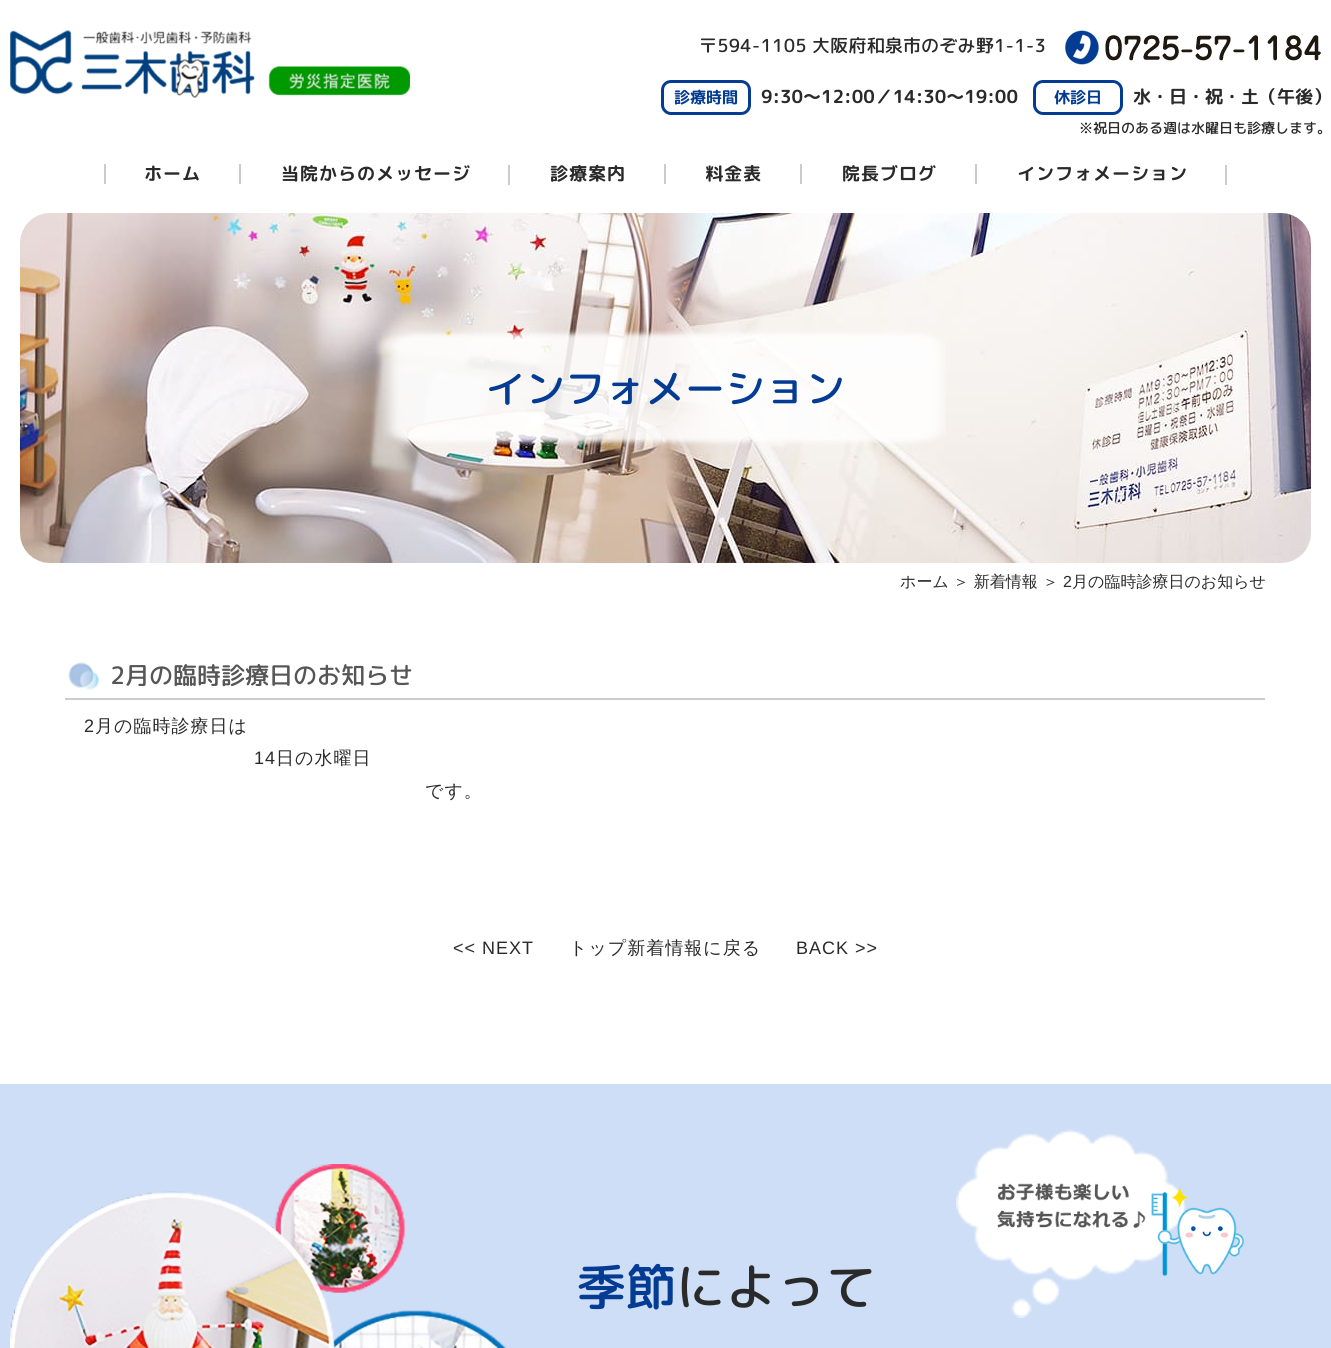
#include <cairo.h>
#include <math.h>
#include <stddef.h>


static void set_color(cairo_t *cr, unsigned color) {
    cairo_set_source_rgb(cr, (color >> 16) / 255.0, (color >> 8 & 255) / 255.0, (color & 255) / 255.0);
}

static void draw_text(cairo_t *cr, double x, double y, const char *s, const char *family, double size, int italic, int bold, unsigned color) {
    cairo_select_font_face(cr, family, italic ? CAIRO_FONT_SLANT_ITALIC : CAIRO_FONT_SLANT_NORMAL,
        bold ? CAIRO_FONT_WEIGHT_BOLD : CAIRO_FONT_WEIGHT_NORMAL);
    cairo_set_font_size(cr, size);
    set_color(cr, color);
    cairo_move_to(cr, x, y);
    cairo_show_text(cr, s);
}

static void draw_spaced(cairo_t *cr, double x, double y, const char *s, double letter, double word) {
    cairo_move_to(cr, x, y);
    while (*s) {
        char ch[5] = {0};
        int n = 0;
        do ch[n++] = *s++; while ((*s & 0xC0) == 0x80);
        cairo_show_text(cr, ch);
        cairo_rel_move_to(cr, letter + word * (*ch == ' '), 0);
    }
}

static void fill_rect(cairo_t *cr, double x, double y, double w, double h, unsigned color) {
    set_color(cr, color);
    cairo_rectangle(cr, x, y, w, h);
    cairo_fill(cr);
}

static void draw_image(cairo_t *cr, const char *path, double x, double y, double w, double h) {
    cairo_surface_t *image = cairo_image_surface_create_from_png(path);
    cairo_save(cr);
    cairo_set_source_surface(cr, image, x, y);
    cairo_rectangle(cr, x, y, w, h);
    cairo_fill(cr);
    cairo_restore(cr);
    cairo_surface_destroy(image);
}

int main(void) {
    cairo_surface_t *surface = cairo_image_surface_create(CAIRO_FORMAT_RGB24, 1331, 1348);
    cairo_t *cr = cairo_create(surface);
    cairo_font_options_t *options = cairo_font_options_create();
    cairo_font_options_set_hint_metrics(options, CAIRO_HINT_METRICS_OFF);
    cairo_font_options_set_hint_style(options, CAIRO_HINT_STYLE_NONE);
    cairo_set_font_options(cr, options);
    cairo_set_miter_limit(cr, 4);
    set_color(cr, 0xFFFFFF);
    cairo_paint(cr);
    draw_image(cr, "assets/img1.png", 10, 30, 400, 68);
    cairo_select_font_face(cr, "Rounded Mplus 1c Medium", CAIRO_FONT_SLANT_NORMAL, CAIRO_FONT_WEIGHT_NORMAL);
    cairo_set_font_size(cr, 18);
    set_color(cr, 0x2B2A2A);
    draw_spaced(cr, 699, 52, "〒594-1105 大阪府和泉市のぞみ野1-1-3", 0.2, 0);
    draw_image(cr, "assets/img2.png", 1065, 30, 256, 35);
    cairo_new_path(cr);
    cairo_move_to(cr, 671, 81.5);
    cairo_line_to(cr, 741, 81.5);
    cairo_curve_to(cr, 746, 81.5, 749.5, 85.5, 749.5, 90);
    cairo_line_to(cr, 749.5, 105);
    cairo_curve_to(cr, 749.5, 109.5, 746, 113.5, 741, 113.5);
    cairo_line_to(cr, 671, 113.5);
    cairo_curve_to(cr, 666.5, 113.5, 662.5, 109.5, 662.5, 105);
    cairo_line_to(cr, 662.5, 90);
    cairo_curve_to(cr, 662.5, 85, 666.5, 81.5, 671, 81.5);
    cairo_close_path(cr);
    set_color(cr, 0x043C93);
    cairo_set_line_width(cr, 3);
    cairo_stroke(cr);
    draw_text(cr, 674, 103, "診療時間", "Rounded Mplus 1c Bold", 16, 0, 1, 0x043C93);
    draw_text(cr, 761, 103, "9:30～12:00／14:30～19:00", "Rounded Mplus 1c Bold", 18, 0, 1, 0x2B2A2A);
    cairo_new_path(cr);
    cairo_move_to(cr, 1043, 81.5);
    cairo_line_to(cr, 1113, 81.5);
    cairo_curve_to(cr, 1117.5, 81.5, 1121.5, 85.5, 1121.5, 90);
    cairo_line_to(cr, 1121.5, 105);
    cairo_curve_to(cr, 1121.5, 109.5, 1117.5, 113.5, 1113, 113.5);
    cairo_line_to(cr, 1043, 113.5);
    cairo_curve_to(cr, 1038.5, 113.5, 1034.5, 109.5, 1034.5, 105);
    cairo_line_to(cr, 1034.5, 90);
    cairo_curve_to(cr, 1034.5, 85, 1038.5, 81.5, 1043, 81.5);
    cairo_close_path(cr);
    set_color(cr, 0x043C93);
    cairo_stroke(cr);
    draw_text(cr, 1054, 103, "休診日", "Rounded Mplus 1c Bold", 16, 0, 1, 0x043C93);
    draw_text(cr, 1133, 103, "水・日・祝・土（午後）", "Rounded Mplus 1c Bold", 18, 0, 1, 0x2B2A2A);
    draw_text(cr, 1079, 133, "※祝日のある週は水曜日も診療します。", "Rounded Mplus 1c Medium", 14, 0, 0, 0x2B2A2A);
    fill_rect(cr, 104, 164, 2, 20, 0xCCCCCC);
    cairo_select_font_face(cr, "Rounded Mplus 1c Bold", CAIRO_FONT_SLANT_NORMAL, CAIRO_FONT_WEIGHT_BOLD);
    cairo_set_font_size(cr, 18);
    set_color(cr, 0x2B2A2A);
    draw_spaced(cr, 144, 180, "ホーム", 1, 0);
    fill_rect(cr, 239, 164, 2, 20, 0xCCCCCC);
    set_color(cr, 0x2B2A2A);
    draw_spaced(cr, 281, 180, "当院からのメッセージ", 1, 0);
    fill_rect(cr, 508, 165, 2, 20, 0xCCCCCC);
    set_color(cr, 0x2B2A2A);
    draw_spaced(cr, 550, 180, "診療案内", 1, 0);
    fill_rect(cr, 664, 164, 2, 20, 0xCCCCCC);
    set_color(cr, 0x2B2A2A);
    draw_spaced(cr, 705, 180, "料金表", 1, 0);
    fill_rect(cr, 800, 164, 2, 20, 0xCCCCCC);
    set_color(cr, 0x2B2A2A);
    draw_spaced(cr, 842, 180, "院長ブログ", 1, 0);
    fill_rect(cr, 975, 164, 2, 20, 0xCCCCCC);
    set_color(cr, 0x2B2A2A);
    draw_spaced(cr, 1017, 180, "インフォメーション", 1, 0);
    fill_rect(cr, 1225, 165, 2, 20, 0xCCCCCC);
    draw_image(cr, "assets/img3.png", 20, 213, 1291, 350);
    draw_image(cr, "assets/img4.png", 382, 329, 564, 117);
    draw_text(cr, 485, 403, "インフォメーション", "Rounded Mplus 1c Medium", 40, 0, 0, 0x043C93);
    draw_text(cr, 900, 587, "ホーム", "WenQuanYi Zen Hei Medium", 16, 0, 0, 0x2B2A2A);
    draw_text(cr, 953, 587, "＞ 新着情報 ＞", "WenQuanYi Zen Hei Medium", 16, 0, 0, 0x2B2A2A);
    draw_text(cr, 1063, 587, "2", "Liberation Sans", 16, 0, 0, 0x2B2A2A);
    draw_text(cr, 1072, 587, "月の臨時診療日のお知らせ", "WenQuanYi Zen Hei Medium", 16, 0, 0, 0x2B2A2A);
    fill_rect(cr, 65, 698, 1200, 2, 0xCCCCCC);
    draw_image(cr, "assets/img5.png", 68, 662, 32, 28);
    draw_text(cr, 110, 684, "2月の臨時診療日のお知らせ", "Rounded Mplus 1c Medium", 24, 0, 0, 0x565656);
    cairo_select_font_face(cr, "Liberation Sans", CAIRO_FONT_SLANT_NORMAL, CAIRO_FONT_WEIGHT_NORMAL);
    cairo_set_font_size(cr, 18);
    set_color(cr, 0x2B2A2A);
    draw_spaced(cr, 84, 732, "2", 1, 0);
    cairo_select_font_face(cr, "WenQuanYi Zen Hei Medium", CAIRO_FONT_SLANT_NORMAL, CAIRO_FONT_WEIGHT_NORMAL);
    draw_spaced(cr, 95, 732, "月の臨時診療日は", 1, 0);
    cairo_select_font_face(cr, "Liberation Sans", CAIRO_FONT_SLANT_NORMAL, CAIRO_FONT_WEIGHT_NORMAL);
    draw_spaced(cr, 254, 764, "14", 1, 0);
    cairo_select_font_face(cr, "WenQuanYi Zen Hei Medium", CAIRO_FONT_SLANT_NORMAL, CAIRO_FONT_WEIGHT_NORMAL);
    draw_spaced(cr, 276, 764, "日の水曜日", 1, 0);
    draw_spaced(cr, 425, 797, "です。", 1, 0);
    cairo_select_font_face(cr, "Liberation Sans", CAIRO_FONT_SLANT_NORMAL, CAIRO_FONT_WEIGHT_NORMAL);
    draw_spaced(cr, 453, 954, "<< NEXT", 1, 0);
    cairo_select_font_face(cr, "WenQuanYi Zen Hei Medium", CAIRO_FONT_SLANT_NORMAL, CAIRO_FONT_WEIGHT_NORMAL);
    draw_spaced(cr, 569, 954, "トップ新着情報に戻る", 1, 0);
    cairo_select_font_face(cr, "Liberation Sans", CAIRO_FONT_SLANT_NORMAL, CAIRO_FONT_WEIGHT_NORMAL);
    draw_spaced(cr, 796, 954, "BACK >>", 1, 0);
    fill_rect(cr, 0, 1084, 1331, 264, 0xCEDEF6);
    draw_image(cr, "assets/img6.png", 10, 1164, 496, 184);
    draw_text(cr, 576, 1305, "季節", "Rounded Mplus 1c Medium", 50, 0, 0, 0x043C93);
    draw_text(cr, 676, 1305, "によって", "Rounded Mplus 1c Medium", 50, 0, 0, 0x2B2A2A);
    draw_image(cr, "assets/img7.png", 956, 1129, 289, 189);
    cairo_surface_write_to_png(surface, "output.png");
    cairo_font_options_destroy(options);
    cairo_destroy(cr);
    cairo_surface_destroy(surface);
    return 0;
}
